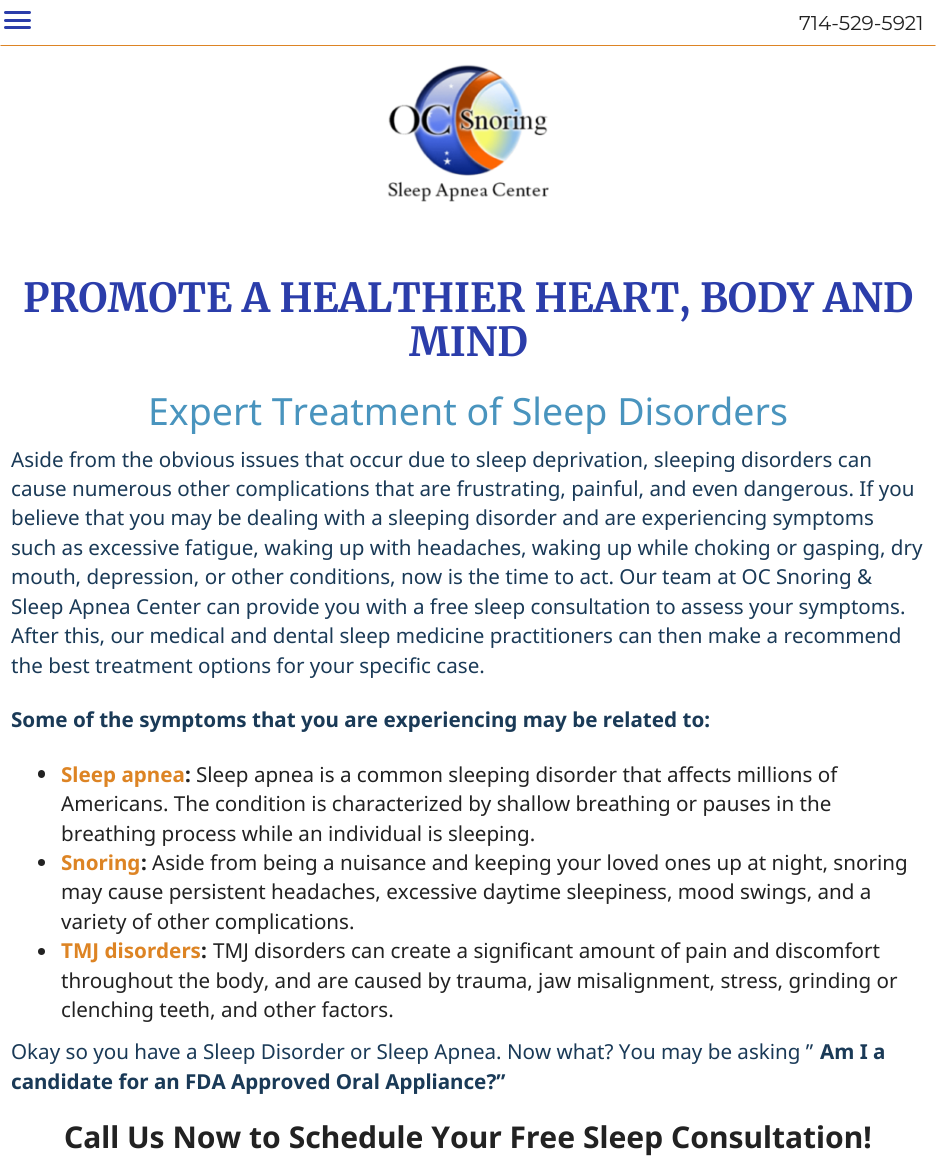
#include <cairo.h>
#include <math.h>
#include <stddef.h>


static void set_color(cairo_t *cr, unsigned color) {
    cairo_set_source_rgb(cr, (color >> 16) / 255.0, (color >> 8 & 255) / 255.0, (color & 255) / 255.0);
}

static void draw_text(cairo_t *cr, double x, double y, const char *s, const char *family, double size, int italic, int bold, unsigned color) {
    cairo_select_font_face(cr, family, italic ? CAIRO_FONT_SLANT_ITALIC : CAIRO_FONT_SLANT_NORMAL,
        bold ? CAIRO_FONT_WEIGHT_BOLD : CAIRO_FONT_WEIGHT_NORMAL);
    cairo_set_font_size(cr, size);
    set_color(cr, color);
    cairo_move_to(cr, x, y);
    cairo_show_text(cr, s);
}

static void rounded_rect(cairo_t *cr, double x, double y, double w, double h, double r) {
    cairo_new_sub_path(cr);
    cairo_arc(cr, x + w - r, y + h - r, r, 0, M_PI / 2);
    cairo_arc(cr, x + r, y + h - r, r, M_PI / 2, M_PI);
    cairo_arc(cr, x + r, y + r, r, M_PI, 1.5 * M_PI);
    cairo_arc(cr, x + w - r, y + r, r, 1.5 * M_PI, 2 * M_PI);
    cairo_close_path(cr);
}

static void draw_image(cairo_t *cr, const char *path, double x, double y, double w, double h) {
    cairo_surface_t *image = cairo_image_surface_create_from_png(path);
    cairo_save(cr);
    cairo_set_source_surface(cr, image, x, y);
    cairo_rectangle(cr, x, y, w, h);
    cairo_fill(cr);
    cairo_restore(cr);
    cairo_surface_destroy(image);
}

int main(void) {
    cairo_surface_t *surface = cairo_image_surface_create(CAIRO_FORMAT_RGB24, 936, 1173);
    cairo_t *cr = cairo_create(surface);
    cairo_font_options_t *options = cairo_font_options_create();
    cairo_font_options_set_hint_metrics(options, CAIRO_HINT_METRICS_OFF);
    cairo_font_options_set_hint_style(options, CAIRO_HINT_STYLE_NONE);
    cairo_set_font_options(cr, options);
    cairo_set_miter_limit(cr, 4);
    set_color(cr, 0xFFFFFF);
    cairo_paint(cr);
    set_color(cr, 0xDD8424);
    cairo_new_path(cr);
    cairo_move_to(cr, 936, 46);
    cairo_line_to(cr, 0, 46);
    cairo_line_to(cr, 1, 45);
    cairo_line_to(cr, 935, 45);
    cairo_close_path(cr);
    cairo_fill(cr);
    set_color(cr, 0x2B3DAA);
    rounded_rect(cr, 4, 11, 27, 3, 1.5);
    cairo_fill(cr);
    rounded_rect(cr, 4, 19, 27, 3, 1.5);
    cairo_fill(cr);
    rounded_rect(cr, 4, 26, 27, 3, 1.5);
    cairo_fill(cr);
    draw_text(cr, 799, 30, "714-529-5921", "Montserrat", 20, 0, 0, 0x222222);
    draw_image(cr, "assets/img1.png", 387, 64, 162, 138);
    draw_text(cr, 23, 312, "PROMOTE A HEALTHIER HEART, BODY AND", "Merriweather", 40, 0, 1, 0x2B3DAA);
    draw_text(cr, 409, 356, "MIND", "Merriweather", 40, 0, 1, 0x2B3DAA);
    draw_text(cr, 148, 425, "Expert Treatment of Sleep Disorders", "Noto Sans", 37.5, 0, 0, 0x4994BE);
    draw_text(cr, 11, 467, "Aside from the obvious issues that occur due to sleep deprivation, sleeping disorders can", "Noto Sans", 20.6, 0, 0, 0x1A3A57);
    draw_text(cr, 11, 496, "cause numerous other complications that are frustrating, painful, and even dangerous. If you", "Noto Sans", 20.6, 0, 0, 0x1A3A57);
    draw_text(cr, 11, 525, "believe that you may be dealing with a sleeping disorder and are experiencing symptoms", "Noto Sans", 20.6, 0, 0, 0x1A3A57);
    draw_text(cr, 11, 555, "such as excessive fatigue, waking up with headaches, waking up while choking or gasping, dry", "Noto Sans", 20.6, 0, 0, 0x1A3A57);
    draw_text(cr, 11, 584, "mouth, depression, or other conditions, now is the time to act. Our team at OC Snoring &", "Noto Sans", 20.6, 0, 0, 0x1A3A57);
    draw_text(cr, 11, 614, "Sleep Apnea Center can provide you with a free sleep consultation to assess your symptoms.", "Noto Sans", 20.6, 0, 0, 0x1A3A57);
    draw_text(cr, 11, 643, "After this, our medical and dental sleep medicine practitioners can then make a recommend", "Noto Sans", 20.6, 0, 0, 0x1A3A57);
    draw_text(cr, 11, 673, "the best treatment options for your specific case.", "Noto Sans", 20.6, 0, 0, 0x1A3A57);
    draw_text(cr, 11, 727, "Some of the symptoms that you are experiencing may be related to:", "Noto Sans", 20.6, 0, 1, 0x1A3A57);
    set_color(cr, 0x222222);
    rounded_rect(cr, 38, 770, 7, 8, 3.5);
    cairo_fill(cr);
    draw_text(cr, 61, 782, "Sleep apnea", "Noto Sans", 20.6, 0, 1, 0xDD8424);
    draw_text(cr, 185, 782, ":", "Noto Sans", 20.6, 0, 1, 0x222222);
    draw_text(cr, 196, 782, "Sleep apnea is a common sleeping disorder that affects millions of", "Noto Sans", 20.6, 0, 0, 0x222222);
    draw_text(cr, 61, 811, "Americans. The condition is characterized by shallow breathing or pauses in the", "Noto Sans", 20.6, 0, 0, 0x222222);
    draw_text(cr, 61, 841, "breathing process while an individual is sleeping.", "Noto Sans", 20.6, 0, 0, 0x222222);
    cairo_new_path(cr);
    cairo_arc(cr, 41.5, 862.5, 3.5, 0, 2 * M_PI);
    cairo_fill(cr);
    draw_text(cr, 61, 870, "Snoring", "Noto Sans", 20.6, 0, 1, 0xDD8424);
    draw_text(cr, 141, 870, ":", "Noto Sans", 20.6, 0, 1, 0x222222);
    draw_text(cr, 152, 870, "Aside from being a nuisance and keeping your loved ones up at night, snoring", "Noto Sans", 20.6, 0, 0, 0x222222);
    draw_text(cr, 61, 899, "may cause persistent headaches, excessive daytime sleepiness, mood swings, and a", "Noto Sans", 20.6, 0, 0, 0x222222);
    draw_text(cr, 61, 929, "variety of other complications.", "Noto Sans", 20.6, 0, 0, 0x222222);
    cairo_new_path(cr);
    cairo_arc(cr, 41.5, 951.5, 3.5, 0, 2 * M_PI);
    cairo_fill(cr);
    draw_text(cr, 61, 958, "TMJ disorders", "Noto Sans", 20.6, 0, 1, 0xDD8424);
    draw_text(cr, 201, 958, ":", "Noto Sans", 20.6, 0, 1, 0x222222);
    draw_text(cr, 213, 958, "TMJ disorders can create a significant amount of pain and discomfort", "Noto Sans", 20.6, 0, 0, 0x222222);
    draw_text(cr, 61, 988, "throughout the body, and are caused by trauma, jaw misalignment, stress, grinding or", "Noto Sans", 20.6, 0, 0, 0x222222);
    draw_text(cr, 61, 1017, "clenching teeth, and other factors.", "Noto Sans", 20.6, 0, 0, 0x222222);
    draw_text(cr, 11, 1059, "Okay so you have a Sleep Disorder or Sleep Apnea. Now what? You may be asking ”", "Noto Sans", 20.6, 0, 0, 0x1A3A57);
    draw_text(cr, 820, 1059, "Am I a", "Noto Sans", 20.6, 0, 1, 0x1A3A57);
    draw_text(cr, 11, 1089, "candidate for an FDA Approved Oral Appliance?”", "Noto Sans", 20.6, 0, 1, 0x1A3A57);
    draw_text(cr, 64, 1148, "Call Us Now to Schedule Your Free Sleep Consultation!", "Noto Sans", 30, 0, 1, 0x222222);
    cairo_surface_write_to_png(surface, "output.png");
    cairo_font_options_destroy(options);
    cairo_destroy(cr);
    cairo_surface_destroy(surface);
    return 0;
}
